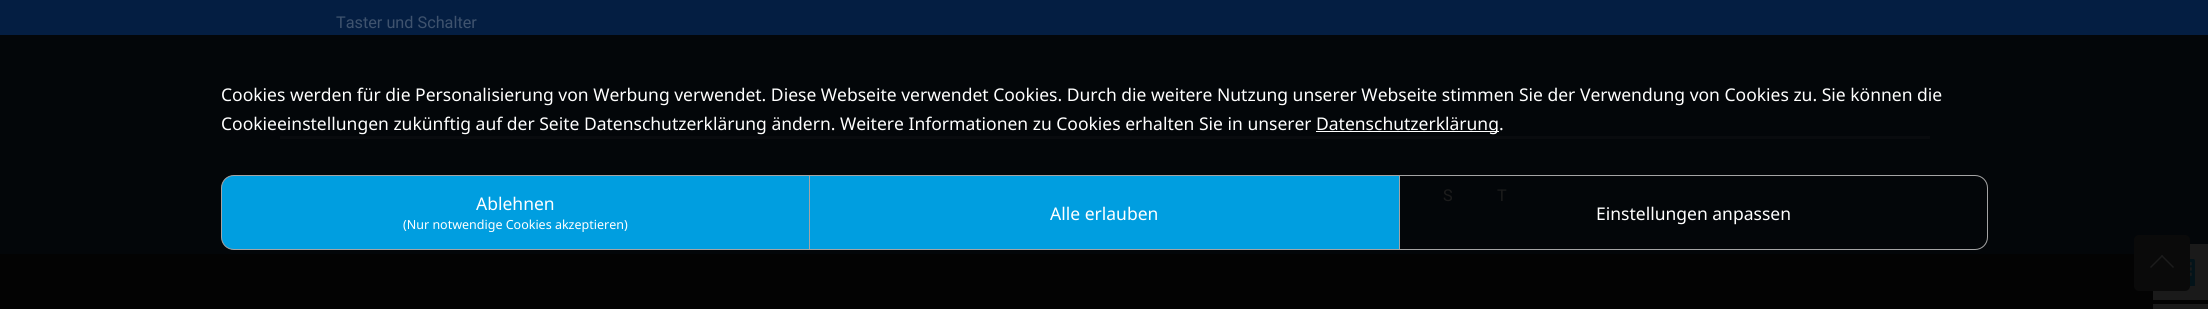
#include <cairo.h>
#include <math.h>
#include <stddef.h>


static void set_color(cairo_t *cr, unsigned color) {
    cairo_set_source_rgb(cr, (color >> 16) / 255.0, (color >> 8 & 255) / 255.0, (color & 255) / 255.0);
}

static void draw_text(cairo_t *cr, double x, double y, const char *s, const char *family, double size, int italic, int bold, unsigned color) {
    cairo_select_font_face(cr, family, italic ? CAIRO_FONT_SLANT_ITALIC : CAIRO_FONT_SLANT_NORMAL,
        bold ? CAIRO_FONT_WEIGHT_BOLD : CAIRO_FONT_WEIGHT_NORMAL);
    cairo_set_font_size(cr, size);
    set_color(cr, color);
    cairo_move_to(cr, x, y);
    cairo_show_text(cr, s);
}

static void fill_rect(cairo_t *cr, double x, double y, double w, double h, unsigned color) {
    set_color(cr, color);
    cairo_rectangle(cr, x, y, w, h);
    cairo_fill(cr);
}

static void rounded_rect(cairo_t *cr, double x, double y, double w, double h, double r) {
    cairo_new_sub_path(cr);
    cairo_arc(cr, x + w - r, y + h - r, r, 0, M_PI / 2);
    cairo_arc(cr, x + r, y + h - r, r, M_PI / 2, M_PI);
    cairo_arc(cr, x + r, y + r, r, M_PI, 1.5 * M_PI);
    cairo_arc(cr, x + w - r, y + r, r, 1.5 * M_PI, 2 * M_PI);
    cairo_close_path(cr);
}

static void draw_image(cairo_t *cr, const char *path, double x, double y, double w, double h) {
    cairo_surface_t *image = cairo_image_surface_create_from_png(path);
    cairo_save(cr);
    cairo_set_source_surface(cr, image, x, y);
    cairo_rectangle(cr, x, y, w, h);
    cairo_fill(cr);
    cairo_restore(cr);
    cairo_surface_destroy(image);
}

int main(void) {
    cairo_surface_t *surface = cairo_image_surface_create(CAIRO_FORMAT_RGB24, 2208, 309);
    cairo_t *cr = cairo_create(surface);
    cairo_font_options_t *options = cairo_font_options_create();
    cairo_font_options_set_hint_metrics(options, CAIRO_HINT_METRICS_OFF);
    cairo_font_options_set_hint_style(options, CAIRO_HINT_STYLE_NONE);
    cairo_set_font_options(cr, options);
    cairo_set_miter_limit(cr, 4);
    set_color(cr, 0x030303);
    cairo_paint(cr);
    fill_rect(cr, 0, 0, 2208, 35, 0x041E42);
    fill_rect(cr, 0, 35, 2208, 219, 0x030609);
    draw_text(cr, 336, 28, "Taster und Schalter", "Roboto", 16.25, 0, 0, 0x3F536E);
    fill_rect(cr, 280, 136, 1650, 3, 0x090B0E);
    draw_text(cr, 1443, 201, "S", "Roboto", 16.25, 0, 0, 0x1C1C1C);
    draw_text(cr, 1497, 201, "T", "Roboto", 16.25, 0, 0, 0x1C1C1C);
    fill_rect(cr, 2153, 244, 55, 56, 0x1A1A1A);
    set_color(cr, 0x0A0A0A);
    rounded_rect(cr, 2134, 235, 56, 56, 5);
    cairo_fill(cr);
    set_color(cr, 0x1C1C1C);
    cairo_new_path(cr);
    cairo_move_to(cr, 2162, 255);
    cairo_line_to(cr, 2174, 267);
    cairo_line_to(cr, 2173, 268);
    cairo_line_to(cr, 2161, 256);
    cairo_close_path(cr);
    cairo_fill(cr);
    cairo_new_path(cr);
    cairo_move_to(cr, 2162, 255);
    cairo_line_to(cr, 2163, 256);
    cairo_line_to(cr, 2151, 268);
    cairo_line_to(cr, 2150, 267);
    cairo_close_path(cr);
    cairo_fill(cr);
    draw_image(cr, "assets/img1.png", 2190, 259, 5, 27);
    fill_rect(cr, 2153, 304, 55, 5, 0x1A1A1A);
    draw_text(cr, 221, 101, "Cookies werden für die Personalisierung von Werbung verwendet. Diese Webseite verwendet Cookies. Durch die weitere Nutzung unserer Webseite stimmen Sie der Verwendung von Cookies zu. Sie können die", "Noto Sans", 17.5, 0, 0, 0xFFFFFF);
    draw_text(cr, 221, 130, "Cookieeinstellungen zukünftig auf der Seite Datenschutzerklärung ändern. Weitere Informationen zu Cookies erhalten Sie in unserer", "Noto Sans", 17.5, 0, 0, 0xFFFFFF);
    fill_rect(cr, 1316, 131, 183, 1, 0xFFFFFF);
    draw_text(cr, 1316, 130, "Datenschutzerklärung.", "Noto Sans", 17.5, 0, 0, 0xFFFFFF);
    set_color(cr, 0x009EE0);
    cairo_new_path(cr);
    cairo_move_to(cr, 234, 175.5);
    cairo_line_to(cr, 809.5, 175.5);
    cairo_line_to(cr, 809.5, 249.5);
    cairo_line_to(cr, 234, 249.5);
    cairo_curve_to(cr, 227, 249.5, 221.5, 244, 221.5, 237);
    cairo_line_to(cr, 221.5, 188);
    cairo_curve_to(cr, 221.5, 181, 227, 175.5, 234, 175.5);
    cairo_close_path(cr);
    cairo_fill_preserve(cr);
    set_color(cr, 0xA4A4A4);
    cairo_set_line_width(cr, 1);
    cairo_stroke(cr);
    draw_text(cr, 476, 210, "Ablehnen", "Noto Sans", 17.5, 0, 0, 0xFFFFFF);
    draw_text(cr, 403, 229, "(Nur notwendige Cookies akzeptieren)", "Noto Sans", 12.5, 0, 0, 0xFFFFFF);
    fill_rect(cr, 810, 176, 589, 73, 0x009EE0);
    fill_rect(cr, 810, 175, 589, 1, 0xA4A4A4);
    fill_rect(cr, 810, 249, 589, 1, 0xA4A4A4);
    draw_text(cr, 1050, 220, "Alle erlauben", "Noto Sans", 17.5, 0, 0, 0xFFFFFF);
    cairo_new_path(cr);
    cairo_move_to(cr, 1399.5, 175.5);
    cairo_line_to(cr, 1975, 175.5);
    cairo_curve_to(cr, 1982, 175.5, 1987.5, 181, 1987.5, 188);
    cairo_line_to(cr, 1987.5, 237);
    cairo_curve_to(cr, 1987.5, 244, 1982, 249.5, 1975, 249.5);
    cairo_line_to(cr, 1399.5, 249.5);
    cairo_close_path(cr);
    set_color(cr, 0xA4A4A4);
    cairo_stroke(cr);
    draw_text(cr, 1596, 220, "Einstellungen anpassen", "Noto Sans", 17.5, 0, 0, 0xFFFFFF);
    cairo_surface_write_to_png(surface, "output.png");
    cairo_font_options_destroy(options);
    cairo_destroy(cr);
    cairo_surface_destroy(surface);
    return 0;
}
